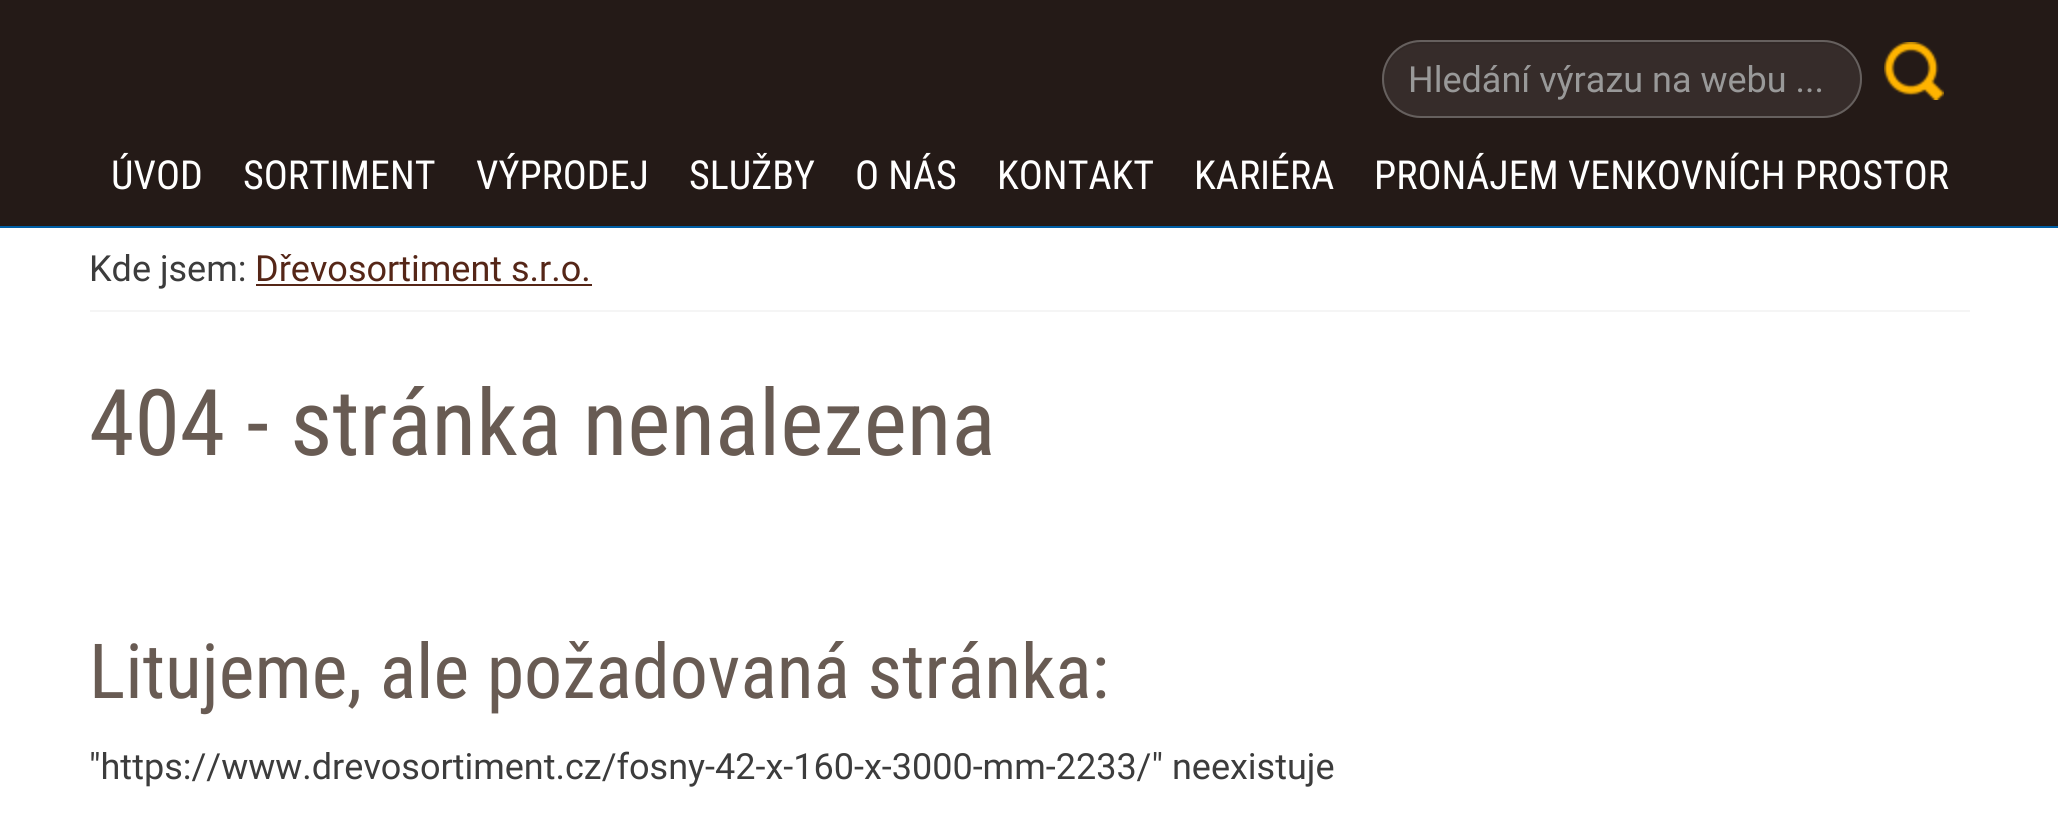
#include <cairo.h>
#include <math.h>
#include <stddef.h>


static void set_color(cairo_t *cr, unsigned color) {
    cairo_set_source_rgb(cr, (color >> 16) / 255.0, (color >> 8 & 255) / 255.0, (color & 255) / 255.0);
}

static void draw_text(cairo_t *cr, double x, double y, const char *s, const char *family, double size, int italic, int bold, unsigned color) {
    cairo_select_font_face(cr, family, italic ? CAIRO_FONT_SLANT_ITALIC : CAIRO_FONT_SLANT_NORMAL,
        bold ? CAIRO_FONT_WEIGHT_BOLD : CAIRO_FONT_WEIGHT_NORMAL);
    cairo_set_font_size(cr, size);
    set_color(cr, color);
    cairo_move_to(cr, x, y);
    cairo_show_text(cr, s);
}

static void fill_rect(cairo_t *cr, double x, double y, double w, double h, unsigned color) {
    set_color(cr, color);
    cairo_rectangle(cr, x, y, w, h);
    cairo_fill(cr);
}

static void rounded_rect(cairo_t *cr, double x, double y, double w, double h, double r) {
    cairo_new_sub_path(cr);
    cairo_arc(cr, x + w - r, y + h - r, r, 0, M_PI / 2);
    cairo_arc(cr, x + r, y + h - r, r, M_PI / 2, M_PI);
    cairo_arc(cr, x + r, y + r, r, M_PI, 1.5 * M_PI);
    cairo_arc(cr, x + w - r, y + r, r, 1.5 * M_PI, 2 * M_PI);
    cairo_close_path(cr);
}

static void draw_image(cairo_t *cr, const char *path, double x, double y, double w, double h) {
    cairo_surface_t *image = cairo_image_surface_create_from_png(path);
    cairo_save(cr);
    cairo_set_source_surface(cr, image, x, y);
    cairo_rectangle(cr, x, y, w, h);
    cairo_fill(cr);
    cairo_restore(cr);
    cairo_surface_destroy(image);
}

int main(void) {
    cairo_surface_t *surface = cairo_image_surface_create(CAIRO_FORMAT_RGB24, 2058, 837);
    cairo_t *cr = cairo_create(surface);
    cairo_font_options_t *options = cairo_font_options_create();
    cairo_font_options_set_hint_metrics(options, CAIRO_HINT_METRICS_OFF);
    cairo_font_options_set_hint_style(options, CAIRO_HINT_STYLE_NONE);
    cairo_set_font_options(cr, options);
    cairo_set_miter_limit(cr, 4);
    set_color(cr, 0xFFFFFF);
    cairo_paint(cr);
    fill_rect(cr, 0, 0, 2058, 226, 0x241A17);
    set_color(cr, 0x362C2A);
    rounded_rect(cr, 1382, 40, 480, 78, 39);
    cairo_fill(cr);
    set_color(cr, 0x322927);
    cairo_new_path(cr);
    cairo_move_to(cr, 1421, 44);
    cairo_line_to(cr, 1823, 44);
    cairo_curve_to(cr, 1843, 44, 1859, 60, 1860, 80);
    cairo_line_to(cr, 1860, 79);
    cairo_curve_to(cr, 1860, 59, 1843, 42, 1823, 42);
    cairo_line_to(cr, 1421, 42);
    cairo_curve_to(cr, 1401, 42, 1384, 59, 1384, 79);
    cairo_line_to(cr, 1384, 80);
    cairo_curve_to(cr, 1385, 60, 1401, 44, 1421, 44);
    cairo_close_path(cr);
    cairo_fill(cr);
    rounded_rect(cr, 1383, 41, 478, 76, 38);
    set_color(cr, 0x66605E);
    cairo_stroke(cr);
    draw_text(cr, 1408, 92, "Hledání výrazu na webu ...", "Roboto", 36, 0, 0, 0x999999);
    draw_image(cr, "assets/img1.png", 1884, 42, 60, 58);
    fill_rect(cr, 0, 226, 2058, 2, 0x005FA6);
    draw_text(cr, 111, 189, "ÚVOD", "Roboto Condensed", 40, 0, 0, 0xFFFFFF);
    draw_text(cr, 243, 189, "SORTIMENT", "Roboto Condensed", 40, 0, 0, 0xFFFFFF);
    draw_text(cr, 476, 189, "VÝPRODEJ", "Roboto Condensed", 40, 0, 0, 0xFFFFFF);
    draw_text(cr, 689, 189, "SLUŽBY", "Roboto Condensed", 40, 0, 0, 0xFFFFFF);
    draw_text(cr, 855, 189, "O NÁS", "Roboto Condensed", 40, 0, 0, 0xFFFFFF);
    draw_text(cr, 997, 189, "KONTAKT", "Roboto Condensed", 40, 0, 0, 0xFFFFFF);
    draw_text(cr, 1194, 189, "KARIÉRA", "Roboto Condensed", 40, 0, 0, 0xFFFFFF);
    draw_text(cr, 1374, 189, "PRONÁJEM VENKOVNÍCH PROSTOR", "Roboto Condensed", 40, 0, 0, 0xFFFFFF);
    fill_rect(cr, 90, 310, 1880, 2, 0xF5F5F5);
    draw_text(cr, 89, 281, "Kde jsem:", "Roboto", 36, 0, 0, 0x3C3C3C);
    draw_text(cr, 255, 281, "Dřevosortiment s.r.o.", "Roboto", 36, 0, 0, 0x552617);
    fill_rect(cr, 256, 284, 336, 2, 0x552617);
    draw_text(cr, 89, 455, "404 - stránka nenalezena", "Roboto Condensed", 92, 0, 0, 0x685B53);
    draw_text(cr, 89, 698, "Litujeme, ale požadovaná stránka:", "Roboto Condensed", 76, 0, 0, 0x685B53);
    draw_text(cr, 89, 779, "\"https://www.drevosortiment.cz/fosny-42-x-160-x-3000-mm-2233/\" neexistuje", "Roboto", 36, 0, 0, 0x3C3C3C);
    cairo_surface_write_to_png(surface, "output.png");
    cairo_font_options_destroy(options);
    cairo_destroy(cr);
    cairo_surface_destroy(surface);
    return 0;
}
